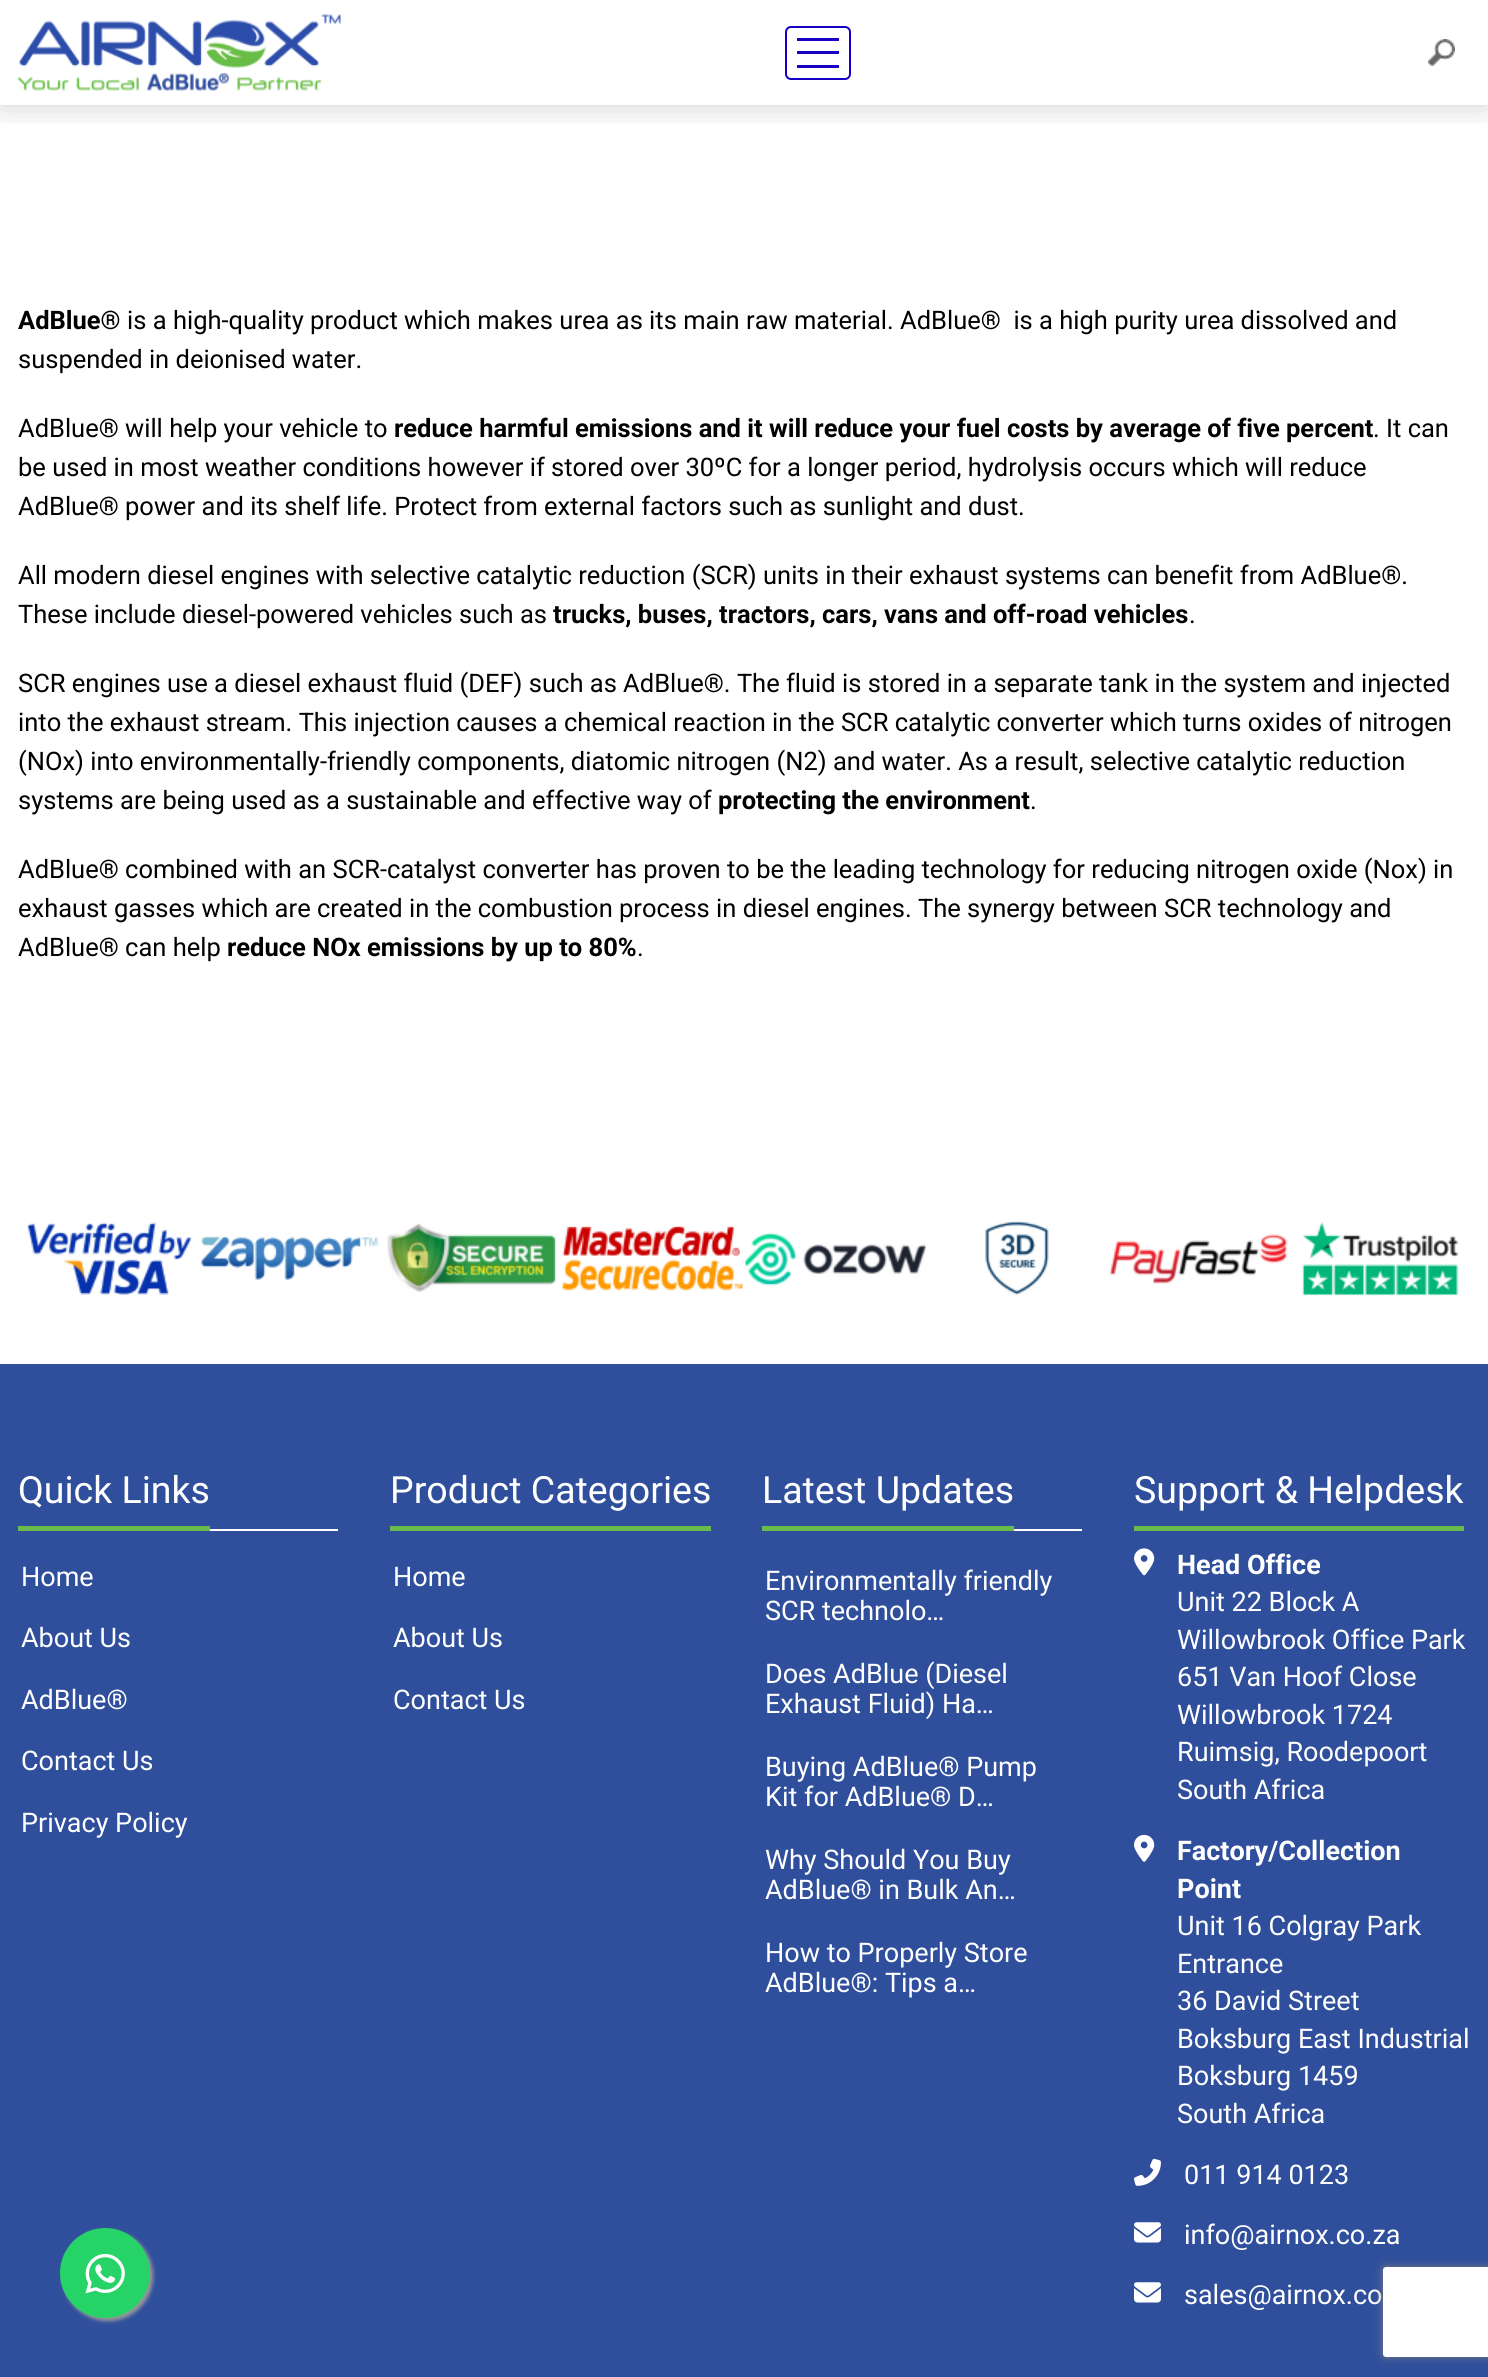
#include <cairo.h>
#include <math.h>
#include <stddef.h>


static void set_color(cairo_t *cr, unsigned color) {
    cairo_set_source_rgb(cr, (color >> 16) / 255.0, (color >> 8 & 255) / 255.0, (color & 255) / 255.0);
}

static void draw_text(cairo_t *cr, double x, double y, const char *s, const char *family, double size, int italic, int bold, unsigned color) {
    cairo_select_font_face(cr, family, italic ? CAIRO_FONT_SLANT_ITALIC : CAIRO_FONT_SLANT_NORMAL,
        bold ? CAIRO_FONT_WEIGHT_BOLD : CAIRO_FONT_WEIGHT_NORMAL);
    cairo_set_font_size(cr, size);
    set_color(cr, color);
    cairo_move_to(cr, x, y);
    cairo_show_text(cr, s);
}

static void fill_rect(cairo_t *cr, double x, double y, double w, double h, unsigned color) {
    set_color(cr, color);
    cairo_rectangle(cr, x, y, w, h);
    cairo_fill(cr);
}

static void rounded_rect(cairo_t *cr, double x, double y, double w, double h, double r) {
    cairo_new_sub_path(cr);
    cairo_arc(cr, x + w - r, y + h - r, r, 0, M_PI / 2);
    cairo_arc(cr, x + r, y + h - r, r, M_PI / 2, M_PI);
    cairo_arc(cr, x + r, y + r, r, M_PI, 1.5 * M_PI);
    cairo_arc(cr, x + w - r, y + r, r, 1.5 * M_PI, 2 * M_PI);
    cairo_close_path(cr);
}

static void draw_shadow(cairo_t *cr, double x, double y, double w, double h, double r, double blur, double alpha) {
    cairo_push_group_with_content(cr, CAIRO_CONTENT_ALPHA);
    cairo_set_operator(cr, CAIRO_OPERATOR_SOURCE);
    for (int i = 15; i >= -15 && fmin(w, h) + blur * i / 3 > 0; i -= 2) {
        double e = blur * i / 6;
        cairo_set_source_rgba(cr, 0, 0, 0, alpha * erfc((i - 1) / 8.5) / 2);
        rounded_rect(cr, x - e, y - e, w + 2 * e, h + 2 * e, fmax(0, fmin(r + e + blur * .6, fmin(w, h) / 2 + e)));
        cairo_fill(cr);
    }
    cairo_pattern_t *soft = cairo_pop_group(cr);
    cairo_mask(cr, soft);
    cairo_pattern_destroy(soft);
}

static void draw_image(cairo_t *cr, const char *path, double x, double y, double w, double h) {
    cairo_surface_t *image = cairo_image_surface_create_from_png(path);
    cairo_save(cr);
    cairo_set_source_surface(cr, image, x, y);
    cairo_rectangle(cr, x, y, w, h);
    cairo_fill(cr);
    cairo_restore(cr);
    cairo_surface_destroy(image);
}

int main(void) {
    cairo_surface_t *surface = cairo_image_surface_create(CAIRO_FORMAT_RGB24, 1488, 2377);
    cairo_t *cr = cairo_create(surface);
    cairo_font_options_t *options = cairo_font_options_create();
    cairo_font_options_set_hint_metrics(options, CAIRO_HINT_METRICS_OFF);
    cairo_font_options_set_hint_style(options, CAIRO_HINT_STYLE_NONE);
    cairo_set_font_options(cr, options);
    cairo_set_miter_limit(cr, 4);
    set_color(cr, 0xFFFFFF);
    cairo_paint(cr);
    cairo_save(cr);
    cairo_rectangle(cr, 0, 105, 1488, 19);
    cairo_clip(cr);
    set_color(cr, 0x000000);
    draw_shadow(cr, 0, 0, 1488, 105, 0, 15, 0.2);
    cairo_restore(cr);
    draw_image(cr, "assets/img1.png", 18, 14, 323, 77);
    rounded_rect(cr, 786, 27, 64, 52, 5);
    set_color(cr, 0x1700C6);
    cairo_stroke(cr);
    fill_rect(cr, 797, 38, 42, 3, 0x1700C6);
    fill_rect(cr, 797, 51, 42, 3, 0x1700C6);
    fill_rect(cr, 797, 65, 42, 3, 0x1700C6);
    draw_image(cr, "assets/img2.png", 1428, 39, 27, 27);
    draw_text(cr, 18, 329, "AdBlue®", "Roboto", 25.5, 0, 1, 0x000000);
    draw_text(cr, 127, 329, "is a high-quality product which makes urea as its main raw material. AdBlue®  is a high purity urea dissolved and", "Roboto", 25.5, 0, 0, 0x000000);
    draw_text(cr, 18, 368, "suspended in deionised water.", "Roboto", 25.5, 0, 0, 0x000000);
    draw_text(cr, 18, 437, "AdBlue® will help your vehicle to", "Roboto", 25.5, 0, 0, 0x000000);
    draw_text(cr, 394, 437, "reduce harmful emissions and it will reduce your fuel costs by average of five percent", "Roboto", 25.5, 0, 1, 0x000000);
    draw_text(cr, 1373, 437, ". It can", "Roboto", 25.5, 0, 0, 0x000000);
    draw_text(cr, 18, 476, "be used in most weather conditions however if stored over 30ºC for a longer period, hydrolysis occurs which will reduce", "Roboto", 25.5, 0, 0, 0x000000);
    draw_text(cr, 18, 515, "AdBlue® power and its shelf life. Protect from external factors such as sunlight and dust.", "Roboto", 25.5, 0, 0, 0x000000);
    draw_text(cr, 18, 584, "All modern diesel engines with selective catalytic reduction (SCR) units in their exhaust systems can benefit from AdBlue®.", "Roboto", 25.5, 0, 0, 0x000000);
    draw_text(cr, 18, 623, "These include diesel-powered vehicles such as", "Roboto", 25.5, 0, 0, 0x000000);
    draw_text(cr, 553, 623, "trucks, buses, tractors, cars, vans and off-road vehicles", "Roboto", 25.5, 0, 1, 0x000000);
    draw_text(cr, 1189, 623, ".", "Roboto", 25.5, 0, 0, 0x000000);
    draw_text(cr, 18, 692, "SCR engines use a diesel exhaust fluid (DEF) such as AdBlue®. The fluid is stored in a separate tank in the system and injected", "Roboto", 25.5, 0, 0, 0x000000);
    draw_text(cr, 18, 731, "into the exhaust stream. This injection causes a chemical reaction in the SCR catalytic converter which turns oxides of nitrogen", "Roboto", 25.5, 0, 0, 0x000000);
    draw_text(cr, 18, 770, "(NOx) into environmentally-friendly components, diatomic nitrogen (N2) and water. As a result, selective catalytic reduction", "Roboto", 25.5, 0, 0, 0x000000);
    draw_text(cr, 18, 809, "systems are being used as a sustainable and effective way of", "Roboto", 25.5, 0, 0, 0x000000);
    draw_text(cr, 718, 809, "protecting the environment", "Roboto", 25.5, 0, 1, 0x000000);
    draw_text(cr, 1030, 809, ".", "Roboto", 25.5, 0, 0, 0x000000);
    draw_text(cr, 18, 878, "AdBlue® combined with an SCR-catalyst converter has proven to be the leading technology for reducing nitrogen oxide (Nox) in", "Roboto", 25.5, 0, 0, 0x000000);
    draw_text(cr, 18, 917, "exhaust gasses which are created in the combustion process in diesel engines. The synergy between SCR technology and", "Roboto", 25.5, 0, 0, 0x000000);
    draw_text(cr, 18, 956, "AdBlue® can help", "Roboto", 25.5, 0, 0, 0x000000);
    draw_text(cr, 227, 956, "reduce NOx emissions by up to 80%", "Roboto", 25.5, 0, 1, 0x000000);
    draw_text(cr, 637, 956, ".", "Roboto", 25.5, 0, 0, 0x000000);
    draw_image(cr, "assets/img3.png", 26, 1222, 167, 73);
    draw_image(cr, "assets/img4.png", 200, 1236, 179, 44);
    draw_image(cr, "assets/img5.png", 387, 1223, 169, 69);
    draw_image(cr, "assets/img6.png", 562, 1225, 181, 66);
    draw_image(cr, "assets/img7.png", 745, 1232, 181, 54);
    draw_image(cr, "assets/img8.png", 985, 1221, 64, 74);
    draw_image(cr, "assets/img9.png", 1109, 1234, 179, 50);
    draw_image(cr, "assets/img10.png", 1302, 1222, 157, 74);
    fill_rect(cr, 0, 1364, 1488, 1013, 0x2F4F9C);
    draw_text(cr, 18, 1503, "Quick Links", "Roboto", 37.5, 0, 0, 0xFFFFFF);
    fill_rect(cr, 18, 1526, 192, 5, 0x6ABA4C);
    fill_rect(cr, 210, 1529, 128, 2, 0xFFFFFF);
    draw_text(cr, 21, 1586, "Home", "Roboto", 27, 0, 0, 0xFFFFFF);
    draw_text(cr, 21, 1647, "About Us", "Roboto", 27, 0, 0, 0xFFFFFF);
    draw_text(cr, 21, 1709, "AdBlue®", "Roboto", 27, 0, 0, 0xFFFFFF);
    draw_text(cr, 21, 1770, "Contact Us", "Roboto", 27, 0, 0, 0xFFFFFF);
    draw_text(cr, 21, 1832, "Privacy Policy", "Roboto", 27, 0, 0, 0xFFFFFF);
    draw_text(cr, 390, 1503, "Product Categories", "Roboto", 37.5, 0, 0, 0xFFFFFF);
    fill_rect(cr, 390, 1526, 321, 5, 0x6ABA4C);
    draw_text(cr, 393, 1586, "Home", "Roboto", 27, 0, 0, 0xFFFFFF);
    draw_text(cr, 393, 1647, "About Us", "Roboto", 27, 0, 0, 0xFFFFFF);
    draw_text(cr, 393, 1709, "Contact Us", "Roboto", 27, 0, 0, 0xFFFFFF);
    draw_text(cr, 762, 1503, "Latest Updates", "Roboto", 37.5, 0, 0, 0xFFFFFF);
    fill_rect(cr, 762, 1526, 252, 5, 0x6ABA4C);
    fill_rect(cr, 1014, 1529, 68, 2, 0xFFFFFF);
    draw_text(cr, 765, 1590, "Environmentally friendly", "Roboto", 27, 0, 0, 0xFFFFFF);
    draw_text(cr, 765, 1620, "SCR technolo…", "Roboto", 27, 0, 0, 0xFFFFFF);
    draw_text(cr, 765, 1683, "Does AdBlue (Diesel", "Roboto", 27, 0, 0, 0xFFFFFF);
    draw_text(cr, 765, 1713, "Exhaust Fluid) Ha…", "Roboto", 27, 0, 0, 0xFFFFFF);
    draw_text(cr, 765, 1776, "Buying AdBlue® Pump", "Roboto", 27, 0, 0, 0xFFFFFF);
    draw_text(cr, 765, 1806, "Kit for AdBlue® D…", "Roboto", 27, 0, 0, 0xFFFFFF);
    draw_text(cr, 765, 1869, "Why Should You Buy", "Roboto", 27, 0, 0, 0xFFFFFF);
    draw_text(cr, 765, 1899, "AdBlue® in Bulk An…", "Roboto", 27, 0, 0, 0xFFFFFF);
    draw_text(cr, 765, 1962, "How to Properly Store", "Roboto", 27, 0, 0, 0xFFFFFF);
    draw_text(cr, 765, 1992, "AdBlue®: Tips a…", "Roboto", 27, 0, 0, 0xFFFFFF);
    draw_text(cr, 1134, 1503, "Support & Helpdesk", "Roboto", 37.5, 0, 0, 0xFFFFFF);
    fill_rect(cr, 1134, 1526, 330, 5, 0x6ABA4C);
    draw_image(cr, "assets/img11.png", 1134, 1548, 21, 28);
    draw_text(cr, 1177, 1574, "Head Office", "Roboto", 27, 0, 1, 0xFFFFFF);
    draw_text(cr, 1177, 1611, "Unit 22 Block A", "Roboto", 27, 0, 0, 0xFFFFFF);
    draw_text(cr, 1177, 1649, "Willowbrook Office Park", "Roboto", 27, 0, 0, 0xFFFFFF);
    draw_text(cr, 1177, 1686, "651 Van Hoof Close", "Roboto", 27, 0, 0, 0xFFFFFF);
    draw_text(cr, 1177, 1724, "Willowbrook 1724", "Roboto", 27, 0, 0, 0xFFFFFF);
    draw_text(cr, 1177, 1761, "Ruimsig, Roodepoort", "Roboto", 27, 0, 0, 0xFFFFFF);
    draw_text(cr, 1177, 1799, "South Africa", "Roboto", 27, 0, 0, 0xFFFFFF);
    draw_image(cr, "assets/img12.png", 1134, 1834, 21, 28);
    draw_text(cr, 1177, 1860, "Factory/Collection", "Roboto", 27, 0, 1, 0xFFFFFF);
    draw_text(cr, 1177, 1898, "Point", "Roboto", 27, 0, 1, 0xFFFFFF);
    draw_text(cr, 1177, 1935, "Unit 16 Colgray Park", "Roboto", 27, 0, 0, 0xFFFFFF);
    draw_text(cr, 1177, 1973, "Entrance", "Roboto", 27, 0, 0, 0xFFFFFF);
    draw_text(cr, 1177, 2010, "36 David Street", "Roboto", 27, 0, 0, 0xFFFFFF);
    draw_text(cr, 1177, 2048, "Boksburg East Industrial", "Roboto", 27, 0, 0, 0xFFFFFF);
    draw_text(cr, 1177, 2085, "Boksburg 1459", "Roboto", 27, 0, 0, 0xFFFFFF);
    draw_text(cr, 1177, 2123, "South Africa", "Roboto", 27, 0, 0, 0xFFFFFF);
    draw_image(cr, "assets/img13.png", 1134, 2158, 27, 28);
    draw_text(cr, 1184, 2184, "011 914 0123", "Roboto", 27, 0, 0, 0xFFFFFF);
    draw_image(cr, "assets/img14.png", 1134, 2222, 27, 21);
    draw_text(cr, 1184, 2244, "info@airnox.co.za", "Roboto", 27, 0, 0, 0xFFFFFF);
    draw_image(cr, "assets/img14.png", 1134, 2282, 27, 21);
    draw_text(cr, 1184, 2304, "sales@airnox.co", "Roboto", 27, 0, 0, 0xFFFFFF);
    set_color(cr, 0x999999);
    draw_shadow(cr, 63, 2231, 90, 90, 45, 2, 1);
    set_color(cr, 0x25D366);
    cairo_arc(cr, 105, 2273, 45, 0, 2 * M_PI);
    cairo_fill(cr);
    draw_image(cr, "assets/img15.png", 85, 2253, 40, 41);
    set_color(cr, 0x808080);
    draw_shadow(cr, 1383, 2267, 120, 90, 3, 4, 1);
    set_color(cr, 0xFFFFFF);
    rounded_rect(cr, 1383, 2267, 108, 90, 3);
    cairo_fill(cr);
    cairo_surface_write_to_png(surface, "output.png");
    cairo_font_options_destroy(options);
    cairo_destroy(cr);
    cairo_surface_destroy(surface);
    return 0;
}
